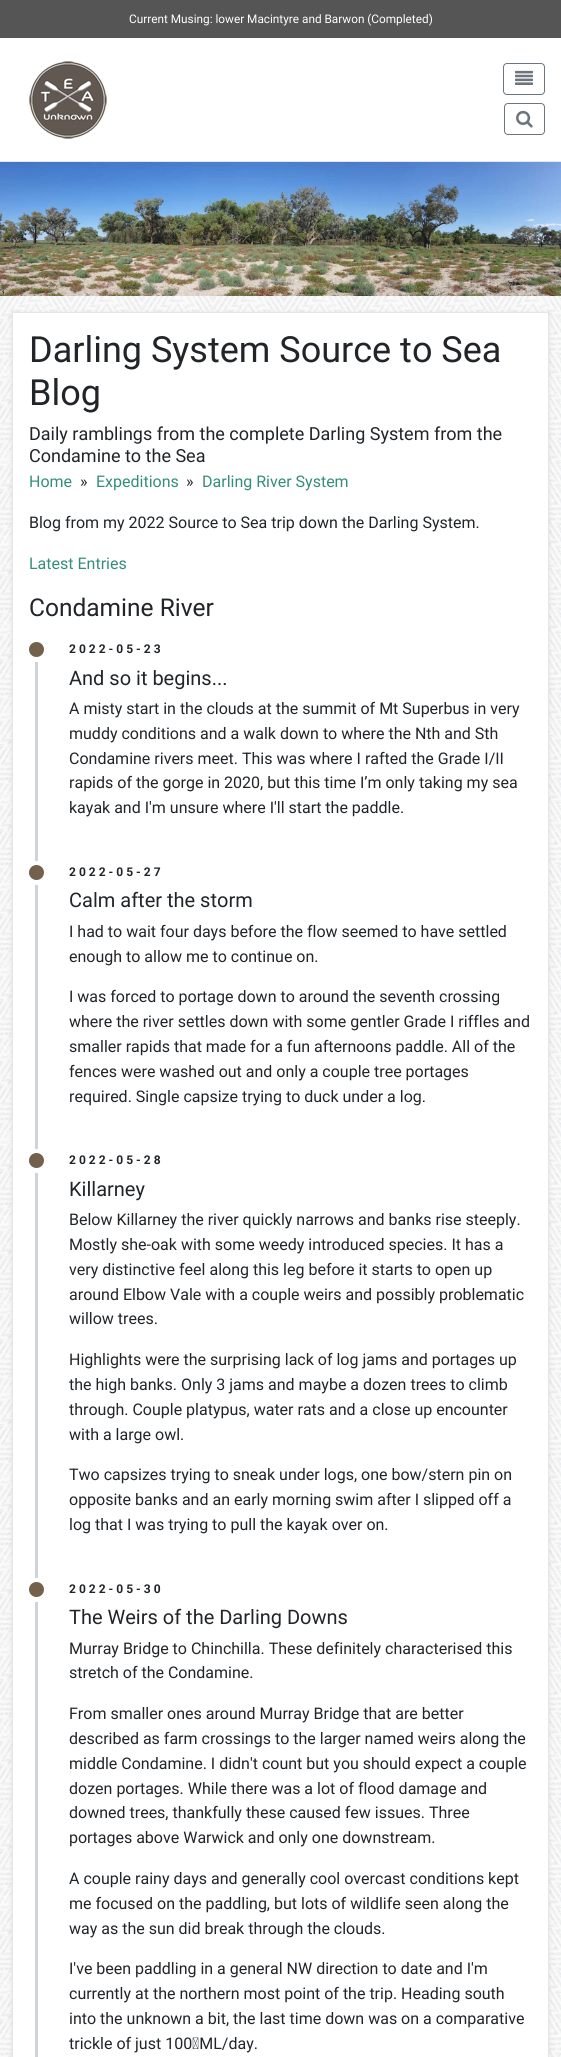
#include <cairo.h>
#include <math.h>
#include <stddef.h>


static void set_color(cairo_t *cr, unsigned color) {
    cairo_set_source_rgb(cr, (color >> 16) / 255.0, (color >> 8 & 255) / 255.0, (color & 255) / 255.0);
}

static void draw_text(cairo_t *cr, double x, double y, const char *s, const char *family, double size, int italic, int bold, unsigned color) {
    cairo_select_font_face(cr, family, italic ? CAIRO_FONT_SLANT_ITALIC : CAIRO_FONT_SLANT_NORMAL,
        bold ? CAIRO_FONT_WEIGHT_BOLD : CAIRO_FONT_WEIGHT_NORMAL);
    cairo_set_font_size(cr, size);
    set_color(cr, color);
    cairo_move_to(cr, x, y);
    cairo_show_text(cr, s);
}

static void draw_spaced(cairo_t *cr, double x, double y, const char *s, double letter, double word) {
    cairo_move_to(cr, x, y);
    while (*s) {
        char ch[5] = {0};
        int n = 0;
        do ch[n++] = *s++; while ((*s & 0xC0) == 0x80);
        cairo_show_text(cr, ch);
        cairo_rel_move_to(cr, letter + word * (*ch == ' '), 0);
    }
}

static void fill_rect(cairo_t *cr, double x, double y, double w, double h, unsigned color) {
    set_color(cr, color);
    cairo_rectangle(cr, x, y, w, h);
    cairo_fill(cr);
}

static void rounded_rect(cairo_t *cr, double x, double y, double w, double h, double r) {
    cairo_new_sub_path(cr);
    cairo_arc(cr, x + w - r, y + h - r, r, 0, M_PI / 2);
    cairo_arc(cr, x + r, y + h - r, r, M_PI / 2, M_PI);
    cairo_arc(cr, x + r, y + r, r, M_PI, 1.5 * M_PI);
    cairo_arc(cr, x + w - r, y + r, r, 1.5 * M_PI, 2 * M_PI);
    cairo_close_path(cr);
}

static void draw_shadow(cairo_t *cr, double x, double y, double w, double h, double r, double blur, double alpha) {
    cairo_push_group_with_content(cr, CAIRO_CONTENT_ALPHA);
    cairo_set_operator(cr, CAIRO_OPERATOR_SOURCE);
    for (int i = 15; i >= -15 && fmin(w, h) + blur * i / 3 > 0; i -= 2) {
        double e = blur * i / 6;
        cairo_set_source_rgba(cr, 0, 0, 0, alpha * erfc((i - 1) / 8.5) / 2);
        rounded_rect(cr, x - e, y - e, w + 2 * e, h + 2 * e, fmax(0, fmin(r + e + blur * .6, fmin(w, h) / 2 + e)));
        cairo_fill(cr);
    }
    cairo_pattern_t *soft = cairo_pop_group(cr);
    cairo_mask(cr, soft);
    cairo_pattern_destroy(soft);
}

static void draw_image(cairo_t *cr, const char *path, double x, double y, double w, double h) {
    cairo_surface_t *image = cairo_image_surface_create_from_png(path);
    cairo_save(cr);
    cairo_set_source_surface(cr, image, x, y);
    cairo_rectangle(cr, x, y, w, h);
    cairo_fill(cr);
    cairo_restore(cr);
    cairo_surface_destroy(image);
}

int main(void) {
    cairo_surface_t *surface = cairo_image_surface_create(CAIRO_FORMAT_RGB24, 561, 2057);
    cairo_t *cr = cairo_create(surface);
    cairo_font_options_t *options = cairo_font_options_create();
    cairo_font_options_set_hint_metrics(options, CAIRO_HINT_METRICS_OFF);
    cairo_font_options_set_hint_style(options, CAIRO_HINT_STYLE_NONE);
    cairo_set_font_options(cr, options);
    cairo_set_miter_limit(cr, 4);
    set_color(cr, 0xFFFFFF);
    cairo_paint(cr);
    draw_image(cr, "assets/img1.png", 0, 296, 561, 1761);
    fill_rect(cr, 0, 0, 561, 38, 0x555555);
    draw_text(cr, 129, 23, "Current Musing: lower Macintyre and Barwon (Completed)", "Roboto", 11.8, 0, 0, 0xFFFFFF);
    fill_rect(cr, 0, 161, 561, 1, 0xE6E6E6);
    draw_image(cr, "assets/img2.png", 29, 61, 78, 78);
    rounded_rect(cr, 503.5, 63.5, 41, 31, 3.5);
    set_color(cr, 0x6C757D);
    cairo_set_line_width(cr, 1);
    cairo_stroke(cr);
    draw_image(cr, "assets/img3.png", 515, 70, 18, 15);
    rounded_rect(cr, 504.5, 103.5, 40, 31, 3.5);
    cairo_stroke(cr);
    draw_image(cr, "assets/img4.png", 516, 110, 17, 18);
    draw_image(cr, "assets/img5.png", 0, 162, 561, 134);
    set_color(cr, 0x000000);
    draw_shadow(cr, 12, 313, 537, 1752, 0, 2.5, 0.1);
    set_color(cr, 0xFFFFFF);
    cairo_rectangle(cr, 12.5, 312.5, 536, 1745);
    cairo_fill_preserve(cr);
    set_color(cr, 0xE6E6E6);
    cairo_stroke(cr);
    draw_text(cr, 29, 362, "Darling System Source to Sea", "Roboto", 36, 0, 0, 0x212529);
    draw_text(cr, 29, 405, "Blog", "Roboto", 36, 0, 0, 0x212529);
    draw_text(cr, 29, 440, "Daily ramblings from the complete Darling System from the", "Roboto", 18, 0, 0, 0x212529);
    draw_text(cr, 29, 462, "Condamine to the Sea", "Roboto", 18, 0, 0, 0x212529);
    draw_text(cr, 29, 487, "Home", "Roboto", 16, 0, 0, 0x348E7B);
    draw_text(cr, 80, 487, "»", "Roboto", 16, 0, 0, 0x212529);
    draw_text(cr, 96, 487, "Expeditions", "Roboto", 16, 0, 0, 0x348E7B);
    draw_text(cr, 186, 487, "»", "Roboto", 16, 0, 0, 0x212529);
    draw_text(cr, 202, 487, "Darling River System", "Roboto", 16, 0, 0, 0x348E7B);
    draw_text(cr, 29, 528, "Blog from my 2022 Source to Sea trip down the Darling System.", "Roboto", 16, 0, 0, 0x212529);
    draw_text(cr, 29, 569, "Latest Entries", "Roboto", 16, 0, 0, 0x348E7B);
    draw_text(cr, 29, 616, "Condamine River", "Roboto", 24.5, 0, 0, 0x212529);
    set_color(cr, 0x73614B);
    cairo_new_path(cr);
    cairo_arc(cr, 36.5, 649.5, 7.5, 0, 2 * M_PI);
    cairo_fill(cr);
    fill_rect(cr, 35, 662, 3, 199, 0xCCD5DB);
    cairo_select_font_face(cr, "Roboto", CAIRO_FONT_SLANT_NORMAL, CAIRO_FONT_WEIGHT_BOLD);
    cairo_set_font_size(cr, 12);
    set_color(cr, 0x212529);
    draw_spaced(cr, 69, 653, "2022-05-23", 3, 0);
    draw_text(cr, 69, 685, "And so it begins...", "Roboto", 20, 0, 0, 0x212529);
    draw_text(cr, 69, 714, "A misty start in the clouds at the summit of Mt Superbus in very", "Roboto", 16, 0, 0, 0x212529);
    draw_text(cr, 69, 739, "muddy conditions and a walk down to where the Nth and Sth", "Roboto", 16, 0, 0, 0x212529);
    draw_text(cr, 69, 764, "Condamine rivers meet. This was where I rafted the Grade I/II", "Roboto", 16, 0, 0, 0x212529);
    draw_text(cr, 69, 788, "rapids of the gorge in 2020, but this time I’m only taking my sea", "Roboto", 16, 0, 0, 0x212529);
    draw_text(cr, 69, 813, "kayak and I'm unsure where I'll start the paddle.", "Roboto", 16, 0, 0, 0x212529);
    set_color(cr, 0x73614B);
    cairo_new_path(cr);
    cairo_arc(cr, 36.5, 872.5, 7.5, 0, 2 * M_PI);
    cairo_fill(cr);
    fill_rect(cr, 35, 885, 3, 264, 0xCCD5DB);
    cairo_select_font_face(cr, "Roboto", CAIRO_FONT_SLANT_NORMAL, CAIRO_FONT_WEIGHT_BOLD);
    cairo_set_font_size(cr, 12);
    set_color(cr, 0x212529);
    draw_spaced(cr, 69, 876, "2022-05-27", 3, 0);
    draw_text(cr, 69, 907, "Calm after the storm", "Roboto", 20, 0, 0, 0x212529);
    draw_text(cr, 69, 937, "I had to wait four days before the flow seemed to have settled", "Roboto", 16, 0, 0, 0x212529);
    draw_text(cr, 69, 962, "enough to allow me to continue on.", "Roboto", 16, 0, 0, 0x212529);
    draw_text(cr, 69, 1002, "I was forced to portage down to around the seventh crossing", "Roboto", 16, 0, 0, 0x212529);
    draw_text(cr, 69, 1027, "where the river settles down with some gentler Grade I riffles and", "Roboto", 16, 0, 0, 0x212529);
    draw_text(cr, 69, 1052, "smaller rapids that made for a fun afternoons paddle. All of the", "Roboto", 16, 0, 0, 0x212529);
    draw_text(cr, 69, 1077, "fences were washed out and only a couple tree portages", "Roboto", 16, 0, 0, 0x212529);
    draw_text(cr, 69, 1102, "required. Single capsize trying to duck under a log.", "Roboto", 16, 0, 0, 0x212529);
    set_color(cr, 0x73614B);
    cairo_new_path(cr);
    cairo_arc(cr, 36.5, 1160.5, 7.5, 0, 2 * M_PI);
    cairo_fill(cr);
    fill_rect(cr, 35, 1173, 3, 405, 0xCCD5DB);
    cairo_select_font_face(cr, "Roboto", CAIRO_FONT_SLANT_NORMAL, CAIRO_FONT_WEIGHT_BOLD);
    cairo_set_font_size(cr, 12);
    set_color(cr, 0x212529);
    draw_spaced(cr, 69, 1164, "2022-05-28", 3, 0);
    draw_text(cr, 69, 1196, "Killarney", "Roboto", 20, 0, 0, 0x212529);
    draw_text(cr, 69, 1225, "Below Killarney the river quickly narrows and banks rise steeply.", "Roboto", 16, 0, 0, 0x212529);
    draw_text(cr, 69, 1250, "Mostly she-oak with some weedy introduced species. It has a", "Roboto", 16, 0, 0, 0x212529);
    draw_text(cr, 69, 1275, "very distinctive feel along this leg before it starts to open up", "Roboto", 16, 0, 0, 0x212529);
    draw_text(cr, 69, 1300, "around Elbow Vale with a couple weirs and possibly problematic", "Roboto", 16, 0, 0, 0x212529);
    draw_text(cr, 69, 1324, "willow trees.", "Roboto", 16, 0, 0, 0x212529);
    draw_text(cr, 69, 1365, "Highlights were the surprising lack of log jams and portages up", "Roboto", 16, 0, 0, 0x212529);
    draw_text(cr, 69, 1390, "the high banks. Only 3 jams and maybe a dozen trees to climb", "Roboto", 16, 0, 0, 0x212529);
    draw_text(cr, 69, 1415, "through. Couple platypus, water rats and a close up encounter", "Roboto", 16, 0, 0, 0x212529);
    draw_text(cr, 69, 1440, "with a large owl.", "Roboto", 16, 0, 0, 0x212529);
    draw_text(cr, 69, 1480, "Two capsizes trying to sneak under logs, one bow/stern pin on", "Roboto", 16, 0, 0, 0x212529);
    draw_text(cr, 69, 1505, "opposite banks and an early morning swim after I slipped off a", "Roboto", 16, 0, 0, 0x212529);
    draw_text(cr, 69, 1530, "log that I was trying to pull the kayak over on.", "Roboto", 16, 0, 0, 0x212529);
    set_color(cr, 0x73614B);
    cairo_new_path(cr);
    cairo_arc(cr, 36.5, 1589.5, 7.5, 0, 2 * M_PI);
    cairo_fill(cr);
    fill_rect(cr, 35, 1602, 3, 455, 0xCCD5DB);
    cairo_select_font_face(cr, "Roboto", CAIRO_FONT_SLANT_NORMAL, CAIRO_FONT_WEIGHT_BOLD);
    cairo_set_font_size(cr, 12);
    set_color(cr, 0x212529);
    draw_spaced(cr, 69, 1593, "2022-05-30", 3, 0);
    draw_text(cr, 69, 1624, "The Weirs of the Darling Downs", "Roboto", 20, 0, 0, 0x212529);
    draw_text(cr, 69, 1654, "Murray Bridge to Chinchilla. These definitely characterised this", "Roboto", 16, 0, 0, 0x212529);
    draw_text(cr, 69, 1678, "stretch of the Condamine.", "Roboto", 16, 0, 0, 0x212529);
    draw_text(cr, 69, 1719, "From smaller ones around Murray Bridge that are better", "Roboto", 16, 0, 0, 0x212529);
    draw_text(cr, 69, 1744, "described as farm crossings to the larger named weirs along the", "Roboto", 16, 0, 0, 0x212529);
    draw_text(cr, 69, 1769, "middle Condamine. I didn't count but you should expect a couple", "Roboto", 16, 0, 0, 0x212529);
    draw_text(cr, 69, 1794, "dozen portages. While there was a lot of flood damage and", "Roboto", 16, 0, 0, 0x212529);
    draw_text(cr, 69, 1818, "downed trees, thankfully these caused few issues. Three", "Roboto", 16, 0, 0, 0x212529);
    draw_text(cr, 69, 1843, "portages above Warwick and only one downstream.", "Roboto", 16, 0, 0, 0x212529);
    draw_text(cr, 69, 1884, "A couple rainy days and generally cool overcast conditions kept", "Roboto", 16, 0, 0, 0x212529);
    draw_text(cr, 69, 1909, "me focused on the paddling, but lots of wildlife seen along the", "Roboto", 16, 0, 0, 0x212529);
    draw_text(cr, 69, 1934, "way as the sun did break through the clouds.", "Roboto", 16, 0, 0, 0x212529);
    draw_text(cr, 69, 1974, "I've been paddling in a general NW direction to date and I'm", "Roboto", 16, 0, 0, 0x212529);
    draw_text(cr, 69, 1999, "currently at the northern most point of the trip. Heading south", "Roboto", 16, 0, 0, 0x212529);
    draw_text(cr, 69, 2024, "into the unknown a bit, the last time down was on a comparative", "Roboto", 16, 0, 0, 0x212529);
    draw_text(cr, 69, 2049, "trickle of just 100 ML/day.", "Roboto", 16, 0, 0, 0x212529);
    cairo_surface_write_to_png(surface, "output.png");
    cairo_font_options_destroy(options);
    cairo_destroy(cr);
    cairo_surface_destroy(surface);
    return 0;
}
